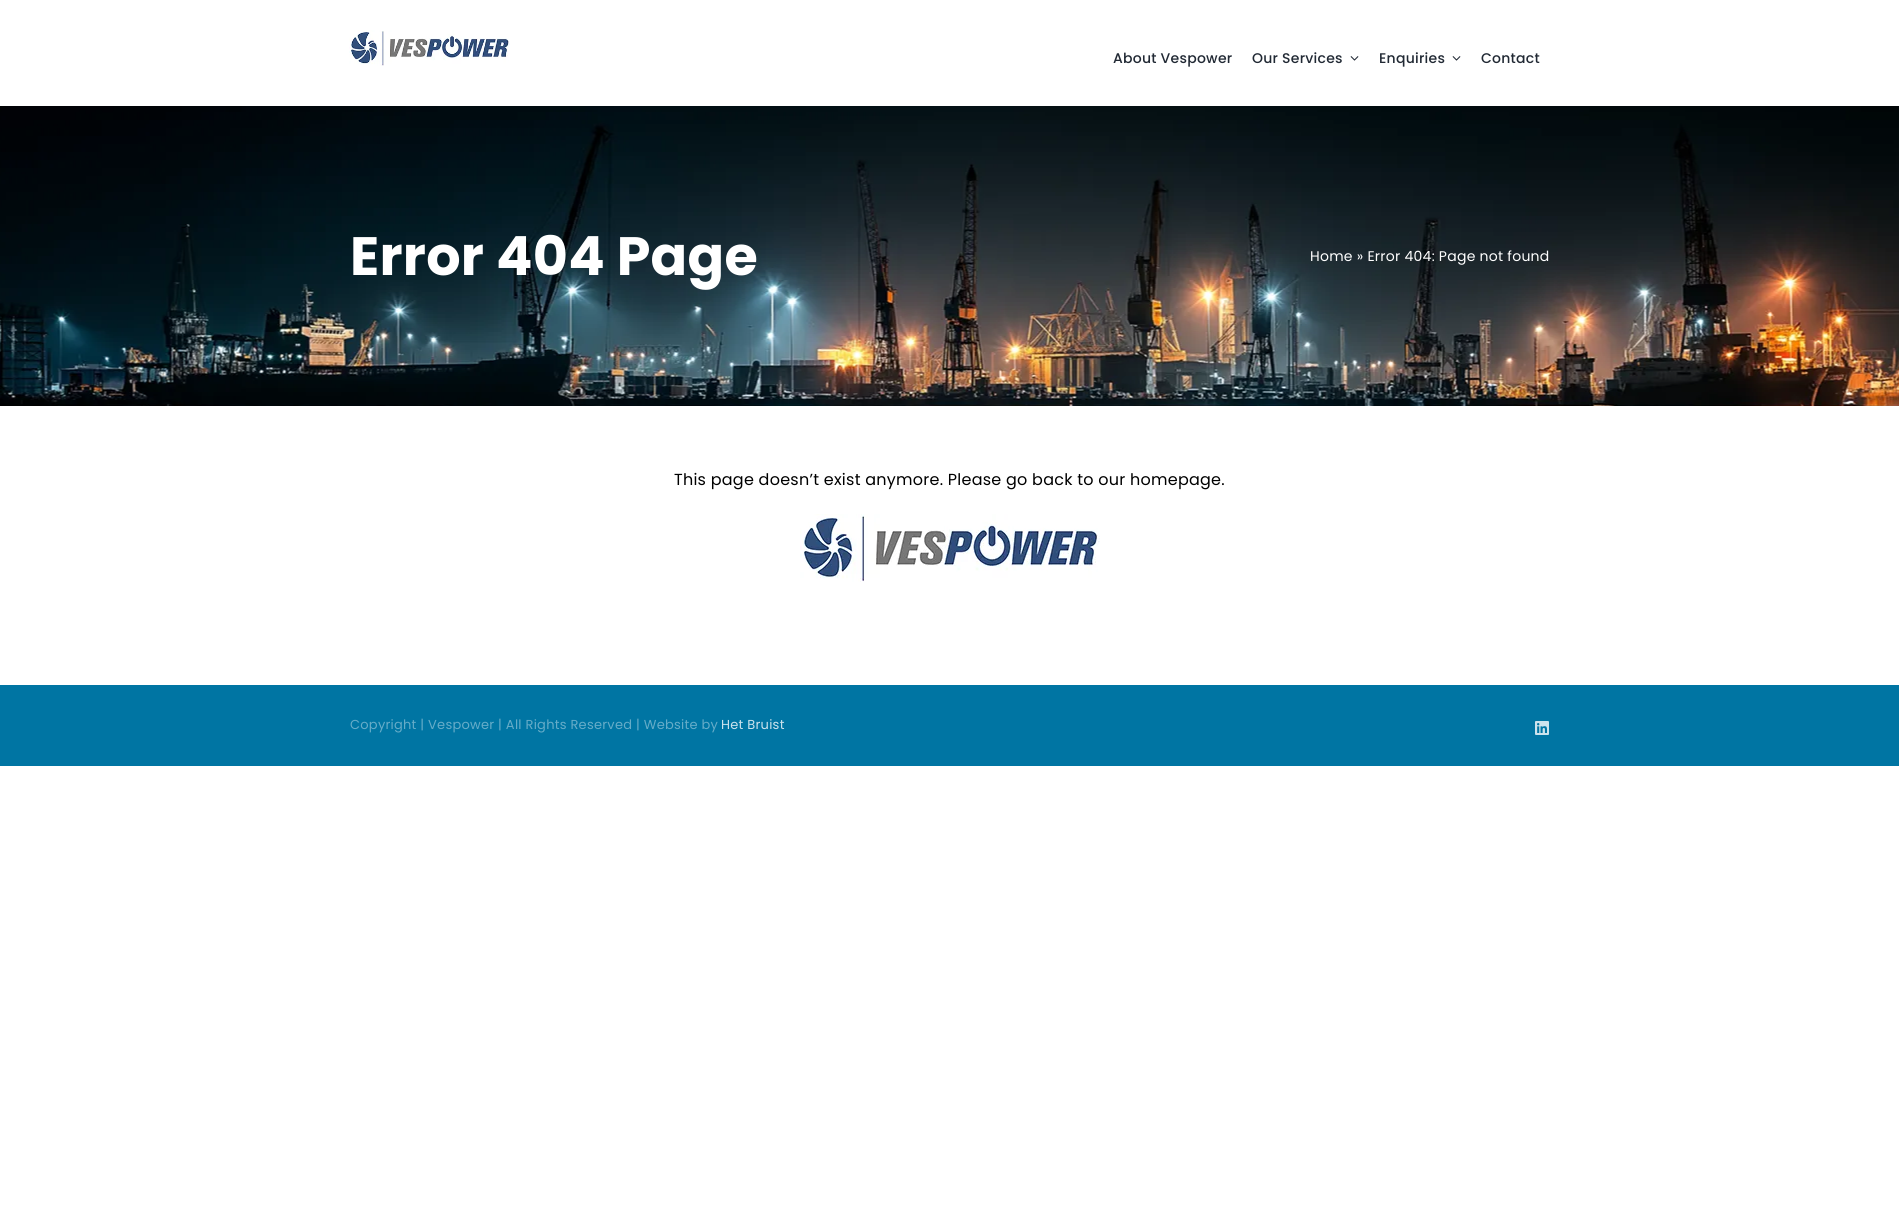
#include <cairo.h>
#include <math.h>
#include <stddef.h>


static void set_color(cairo_t *cr, unsigned color) {
    cairo_set_source_rgb(cr, (color >> 16) / 255.0, (color >> 8 & 255) / 255.0, (color & 255) / 255.0);
}

static void draw_spaced(cairo_t *cr, double x, double y, const char *s, double letter, double word) {
    cairo_move_to(cr, x, y);
    while (*s) {
        char ch[5] = {0};
        int n = 0;
        do ch[n++] = *s++; while ((*s & 0xC0) == 0x80);
        cairo_show_text(cr, ch);
        cairo_rel_move_to(cr, letter + word * (*ch == ' '), 0);
    }
}

static void fill_rect(cairo_t *cr, double x, double y, double w, double h, unsigned color) {
    set_color(cr, color);
    cairo_rectangle(cr, x, y, w, h);
    cairo_fill(cr);
}

static void draw_image(cairo_t *cr, const char *path, double x, double y, double w, double h) {
    cairo_surface_t *image = cairo_image_surface_create_from_png(path);
    cairo_save(cr);
    cairo_set_source_surface(cr, image, x, y);
    cairo_rectangle(cr, x, y, w, h);
    cairo_fill(cr);
    cairo_restore(cr);
    cairo_surface_destroy(image);
}

int main(void) {
    cairo_surface_t *surface = cairo_image_surface_create(CAIRO_FORMAT_RGB24, 1899, 1217);
    cairo_t *cr = cairo_create(surface);
    cairo_font_options_t *options = cairo_font_options_create();
    cairo_font_options_set_hint_metrics(options, CAIRO_HINT_METRICS_OFF);
    cairo_font_options_set_hint_style(options, CAIRO_HINT_STYLE_NONE);
    cairo_set_font_options(cr, options);
    cairo_set_miter_limit(cr, 4);
    set_color(cr, 0xFFFFFF);
    cairo_paint(cr);
    draw_image(cr, "assets/img1.png", 349, 30, 161, 36);
    cairo_select_font_face(cr, "Poppins Medium", CAIRO_FONT_SLANT_NORMAL, CAIRO_FONT_WEIGHT_NORMAL);
    cairo_set_font_size(cr, 14);
    set_color(cr, 0x212934);
    draw_spaced(cr, 1113, 63, "About Vespower", 0.25, 0);
    draw_spaced(cr, 1252, 63, "Our Services", 0.25, 0);
    draw_image(cr, "assets/img2.png", 1350, 56, 9, 5);
    draw_spaced(cr, 1379, 63, "Enquiries", 0.25, 0);
    draw_image(cr, "assets/img2.png", 1452, 56, 9, 5);
    draw_spaced(cr, 1481, 63, "Contact", 0.25, 0);
    draw_image(cr, "assets/img3.png", 0, 106, 1899, 300);
    cairo_select_font_face(cr, "Poppins", CAIRO_FONT_SLANT_NORMAL, CAIRO_FONT_WEIGHT_BOLD);
    cairo_set_font_size(cr, 54);
    set_color(cr, 0xFFFFFF);
    draw_spaced(cr, 350, 275, "Error 404 Page", 0.25, 0);
    cairo_select_font_face(cr, "Poppins", CAIRO_FONT_SLANT_NORMAL, CAIRO_FONT_WEIGHT_NORMAL);
    cairo_set_font_size(cr, 14);
    draw_spaced(cr, 1310, 261, "Home » Error 404: Page not found", 0.25, 0);
    cairo_set_font_size(cr, 16);
    set_color(cr, 0x000000);
    draw_spaced(cr, 674, 485, "This page doesn’t exist anymore. Please go back to our homepage.", 0.25, 0);
    draw_image(cr, "assets/img4.png", 800, 514, 300, 68);
    fill_rect(cr, 0, 685, 1899, 81, 0x0075A3);
    cairo_set_font_size(cr, 13);
    set_color(cr, 0x66ACC8);
    draw_spaced(cr, 350, 729, "Copyright | Vespower | All Rights Reserved | Website by", 0.25, 0);
    set_color(cr, 0xCCE3ED);
    draw_spaced(cr, 721, 729, "Het Bruist", 0.25, 0);
    draw_image(cr, "assets/img5.png", 1535, 721, 14, 14);
    cairo_surface_write_to_png(surface, "output.png");
    cairo_font_options_destroy(options);
    cairo_destroy(cr);
    cairo_surface_destroy(surface);
    return 0;
}
